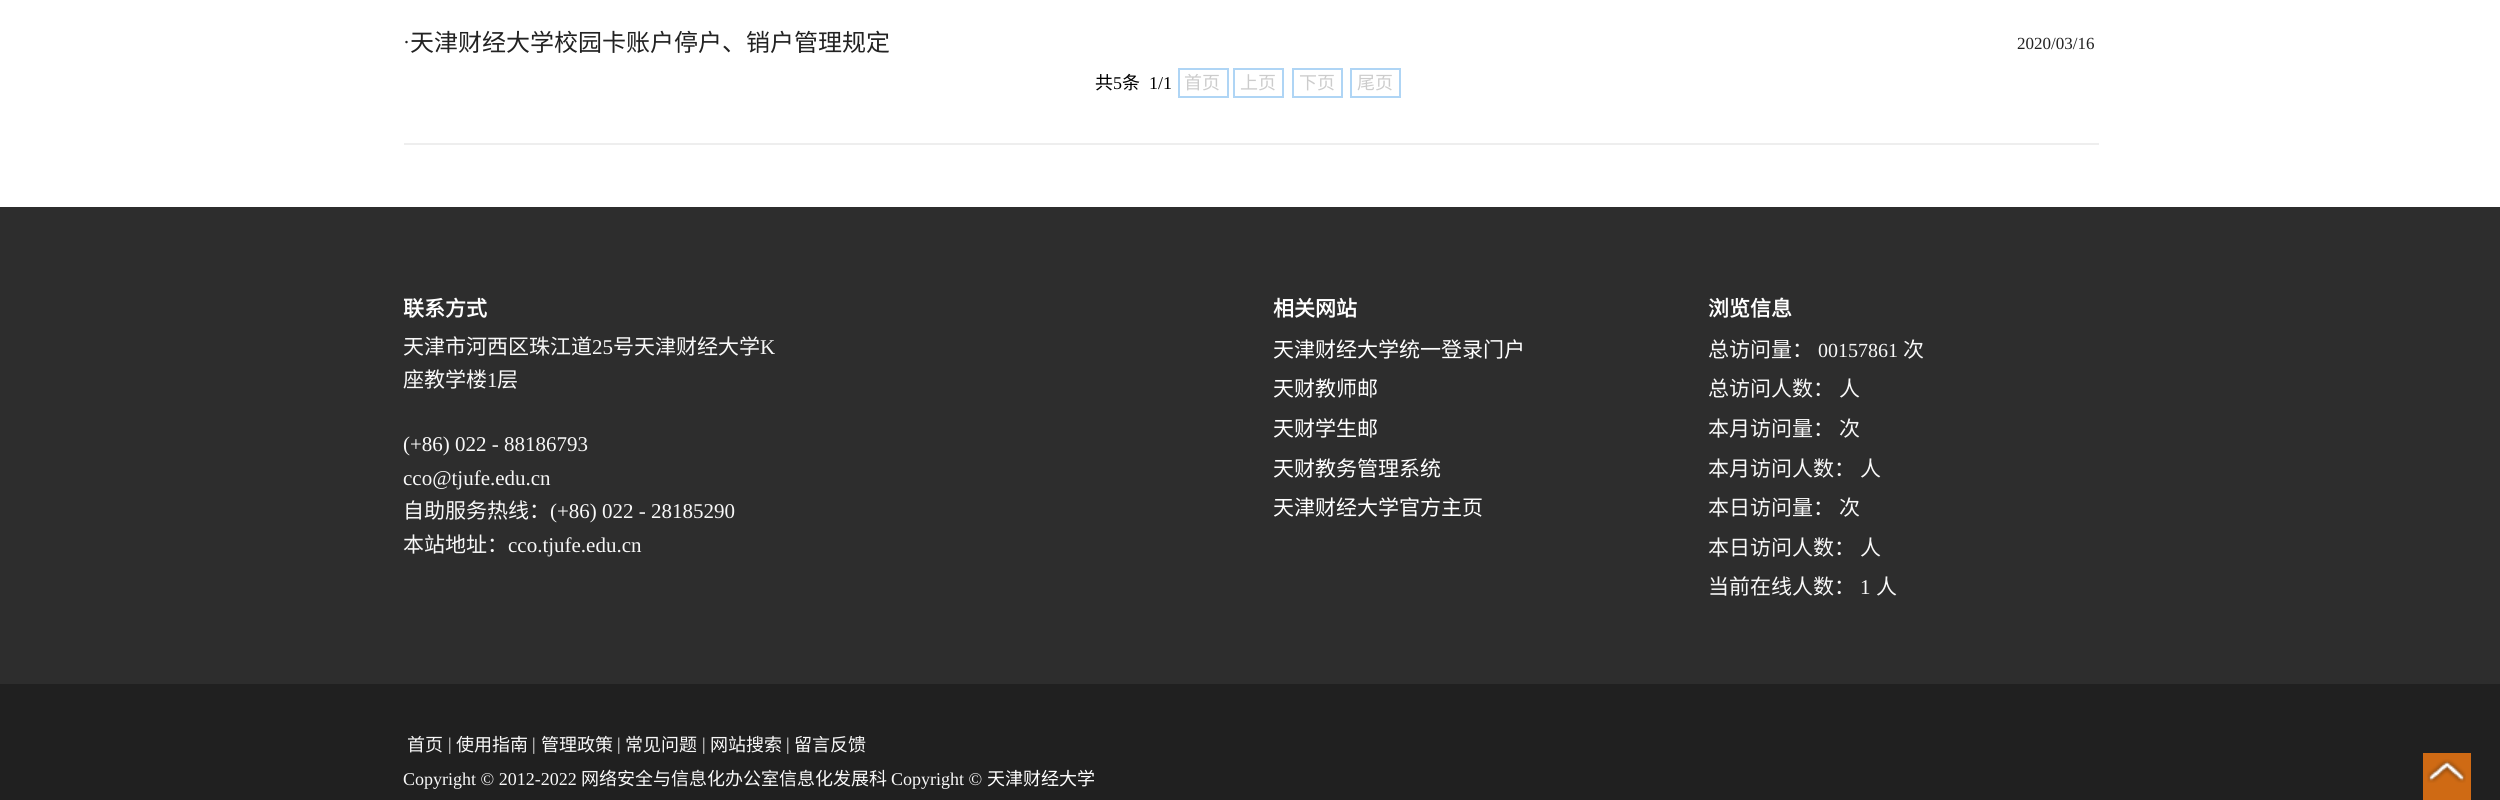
#include <cairo.h>
#include <math.h>
#include <stddef.h>


static void set_color(cairo_t *cr, unsigned color) {
    cairo_set_source_rgb(cr, (color >> 16) / 255.0, (color >> 8 & 255) / 255.0, (color & 255) / 255.0);
}

static void draw_text(cairo_t *cr, double x, double y, const char *s, const char *family, double size, int italic, int bold, unsigned color) {
    cairo_select_font_face(cr, family, italic ? CAIRO_FONT_SLANT_ITALIC : CAIRO_FONT_SLANT_NORMAL,
        bold ? CAIRO_FONT_WEIGHT_BOLD : CAIRO_FONT_WEIGHT_NORMAL);
    cairo_set_font_size(cr, size);
    set_color(cr, color);
    cairo_move_to(cr, x, y);
    cairo_show_text(cr, s);
}

static void fill_rect(cairo_t *cr, double x, double y, double w, double h, unsigned color) {
    set_color(cr, color);
    cairo_rectangle(cr, x, y, w, h);
    cairo_fill(cr);
}

static void draw_image(cairo_t *cr, const char *path, double x, double y, double w, double h) {
    cairo_surface_t *image = cairo_image_surface_create_from_png(path);
    cairo_save(cr);
    cairo_set_source_surface(cr, image, x, y);
    cairo_rectangle(cr, x, y, w, h);
    cairo_fill(cr);
    cairo_restore(cr);
    cairo_surface_destroy(image);
}

int main(void) {
    cairo_surface_t *surface = cairo_image_surface_create(CAIRO_FORMAT_RGB24, 2500, 800);
    cairo_t *cr = cairo_create(surface);
    cairo_font_options_t *options = cairo_font_options_create();
    cairo_font_options_set_hint_metrics(options, CAIRO_HINT_METRICS_OFF);
    cairo_font_options_set_hint_style(options, CAIRO_HINT_STYLE_NONE);
    cairo_set_font_options(cr, options);
    cairo_set_miter_limit(cr, 4);
    set_color(cr, 0xFFFFFF);
    cairo_paint(cr);
    draw_text(cr, 403, 49, "·", "Liberation Serif", 21, 0, 0, 0x222222);
    draw_text(cr, 410, 51, "天津财经大学校园卡账户停户、销户管理规定", "Noto Sans CJK SC", 24, 0, 0, 0x222222);
    draw_text(cr, 2017, 49, "2020/03/16", "Liberation Serif", 17, 0, 0, 0x222222);
    draw_text(cr, 1095, 89, "共", "Noto Sans CJK SC", 18, 0, 0, 0x000000);
    draw_text(cr, 1113, 89, "5", "Liberation Serif", 18, 0, 0, 0x000000);
    draw_text(cr, 1122, 89, "条", "Noto Sans CJK SC", 18, 0, 0, 0x000000);
    draw_text(cr, 1149, 89, "1/1", "Liberation Serif", 18, 0, 0, 0x000000);
    cairo_rectangle(cr, 1179, 69, 49, 28);
    set_color(cr, 0xAFD5F5);
    cairo_stroke(cr);
    draw_text(cr, 1184, 89, "首页", "Noto Sans CJK SC", 18, 0, 0, 0xCCCCCC);
    cairo_rectangle(cr, 1234, 69, 49, 28);
    set_color(cr, 0xAFD5F5);
    cairo_stroke(cr);
    draw_text(cr, 1240, 89, "上页", "Noto Sans CJK SC", 18, 0, 0, 0xCCCCCC);
    cairo_rectangle(cr, 1293, 69, 49, 28);
    set_color(cr, 0xAFD5F5);
    cairo_stroke(cr);
    draw_text(cr, 1299, 89, "下页", "Noto Sans CJK SC", 18, 0, 0, 0xCCCCCC);
    cairo_rectangle(cr, 1351, 69, 49, 28);
    set_color(cr, 0xAFD5F5);
    cairo_stroke(cr);
    draw_text(cr, 1357, 89, "尾页", "Noto Sans CJK SC", 18, 0, 0, 0xCCCCCC);
    fill_rect(cr, 404, 143, 1695, 2, 0xEEEEEE);
    fill_rect(cr, 0, 207, 2500, 477, 0x2D2D2D);
    draw_text(cr, 403, 316, "联系方式", "Noto Sans CJK SC", 21, 0, 1, 0xFFFFFF);
    draw_text(cr, 403, 354, "天津市河西区珠江道", "Noto Sans CJK SC", 21, 0, 0, 0xF8F8F8);
    draw_text(cr, 592, 354, "25", "Liberation Serif", 21, 0, 0, 0xF8F8F8);
    draw_text(cr, 613, 354, "号天津财经大学", "Noto Sans CJK SC", 21, 0, 0, 0xF8F8F8);
    draw_text(cr, 760, 354, "K", "Liberation Serif", 21, 0, 0, 0xF8F8F8);
    draw_text(cr, 403, 387, "座教学楼", "Noto Sans CJK SC", 21, 0, 0, 0xF8F8F8);
    draw_text(cr, 487, 387, "1", "Liberation Serif", 21, 0, 0, 0xF8F8F8);
    draw_text(cr, 497, 387, "层", "Noto Sans CJK SC", 21, 0, 0, 0xF8F8F8);
    draw_text(cr, 403, 451, "(+86) 022 - 88186793", "Liberation Serif", 21, 0, 0, 0xF8F8F8);
    draw_text(cr, 403, 485, "cco@tjufe.edu.cn", "Liberation Serif", 21, 0, 0, 0xF8F8F8);
    draw_text(cr, 403, 518, "自助服务热线：", "Noto Sans CJK SC", 21, 0, 0, 0xF8F8F8);
    draw_text(cr, 550, 518, "(+86) 022 - 28185290", "Liberation Serif", 21, 0, 0, 0xF8F8F8);
    draw_text(cr, 403, 552, "本站地址：", "Noto Sans CJK SC", 21, 0, 0, 0xF8F8F8);
    draw_text(cr, 508, 552, "cco.tjufe.edu.cn", "Liberation Serif", 21, 0, 0, 0xF8F8F8);
    draw_text(cr, 1273, 316, "相关网站", "Noto Sans CJK SC", 21, 0, 1, 0xFFFFFF);
    draw_text(cr, 1273, 357, "天津财经大学统一登录门户", "Noto Sans CJK SC", 21, 0, 0, 0xFFFFFF);
    draw_text(cr, 1273, 396, "天财教师邮", "Noto Sans CJK SC", 21, 0, 0, 0xFFFFFF);
    draw_text(cr, 1273, 436, "天财学生邮", "Noto Sans CJK SC", 21, 0, 0, 0xFFFFFF);
    draw_text(cr, 1273, 476, "天财教务管理系统", "Noto Sans CJK SC", 21, 0, 0, 0xFFFFFF);
    draw_text(cr, 1273, 515, "天津财经大学官方主页", "Noto Sans CJK SC", 21, 0, 0, 0xFFFFFF);
    draw_text(cr, 1708, 316, "浏览信息", "Noto Sans CJK SC", 21, 0, 1, 0xFFFFFF);
    draw_text(cr, 1708, 357, "总访问量：", "Noto Sans CJK SC", 21, 0, 0, 0xF8F8F8);
    draw_text(cr, 1818, 357, "00157861", "Liberation Serif", 20, 0, 0, 0xF8F8F8);
    draw_text(cr, 1903, 357, "次", "Noto Sans CJK SC", 21, 0, 0, 0xF8F8F8);
    draw_text(cr, 1708, 396, "总访问人数：", "Noto Sans CJK SC", 21, 0, 0, 0xF8F8F8);
    draw_text(cr, 1839, 396, "人", "Noto Sans CJK SC", 21, 0, 0, 0xF8F8F8);
    draw_text(cr, 1708, 436, "本月访问量：", "Noto Sans CJK SC", 21, 0, 0, 0xF8F8F8);
    draw_text(cr, 1839, 436, "次", "Noto Sans CJK SC", 21, 0, 0, 0xF8F8F8);
    draw_text(cr, 1708, 476, "本月访问人数：", "Noto Sans CJK SC", 21, 0, 0, 0xF8F8F8);
    draw_text(cr, 1860, 476, "人", "Noto Sans CJK SC", 21, 0, 0, 0xF8F8F8);
    draw_text(cr, 1708, 515, "本日访问量：", "Noto Sans CJK SC", 21, 0, 0, 0xF8F8F8);
    draw_text(cr, 1839, 515, "次", "Noto Sans CJK SC", 21, 0, 0, 0xF8F8F8);
    draw_text(cr, 1708, 555, "本日访问人数：", "Noto Sans CJK SC", 21, 0, 0, 0xF8F8F8);
    draw_text(cr, 1860, 555, "人", "Noto Sans CJK SC", 21, 0, 0, 0xF8F8F8);
    draw_text(cr, 1708, 594, "当前在线人数：", "Noto Sans CJK SC", 21, 0, 0, 0xF8F8F8);
    draw_text(cr, 1860, 594, "1", "Liberation Serif", 21, 0, 0, 0xF8F8F8);
    draw_text(cr, 1876, 594, "人", "Noto Sans CJK SC", 21, 0, 0, 0xF8F8F8);
    fill_rect(cr, 0, 684, 2500, 116, 0x202020);
    draw_text(cr, 407, 751, "首页", "Noto Sans CJK SC", 18, 0, 0, 0xF8F8F8);
    draw_text(cr, 448, 750, "|", "Liberation Serif", 18, 0, 0, 0xF8F8F8);
    draw_text(cr, 456, 751, "使用指南", "Noto Sans CJK SC", 18, 0, 0, 0xF8F8F8);
    draw_text(cr, 532, 750, "|", "Liberation Serif", 18, 0, 0, 0xF8F8F8);
    draw_text(cr, 541, 751, "管理政策", "Noto Sans CJK SC", 18, 0, 0, 0xF8F8F8);
    draw_text(cr, 617, 750, "|", "Liberation Serif", 18, 0, 0, 0xF8F8F8);
    draw_text(cr, 625, 751, "常见问题", "Noto Sans CJK SC", 18, 0, 0, 0xF8F8F8);
    draw_text(cr, 702, 750, "|", "Liberation Serif", 18, 0, 0, 0xF8F8F8);
    draw_text(cr, 710, 751, "网站搜索", "Noto Sans CJK SC", 18, 0, 0, 0xF8F8F8);
    draw_text(cr, 786, 750, "|", "Liberation Serif", 18, 0, 0, 0xF8F8F8);
    draw_text(cr, 794, 751, "留言反馈", "Noto Sans CJK SC", 18, 0, 0, 0xF8F8F8);
    draw_text(cr, 403, 785, "Copyright © 2012-2022", "Liberation Serif", 18, 0, 0, 0xF8F8F8);
    draw_text(cr, 581, 785, "网络安全与信息化办公室信息化发展科", "Noto Sans CJK SC", 18, 0, 0, 0xF8F8F8);
    draw_text(cr, 891, 785, "Copyright ©", "Liberation Serif", 18, 0, 0, 0xF8F8F8);
    draw_text(cr, 987, 785, "天津财经大学", "Noto Sans CJK SC", 18, 0, 0, 0xFFFFFF);
    fill_rect(cr, 2423, 753, 48, 47, 0xCF6A14);
    draw_image(cr, "assets/img1.png", 2427, 759, 39, 24);
    cairo_surface_write_to_png(surface, "output.png");
    cairo_font_options_destroy(options);
    cairo_destroy(cr);
    cairo_surface_destroy(surface);
    return 0;
}
